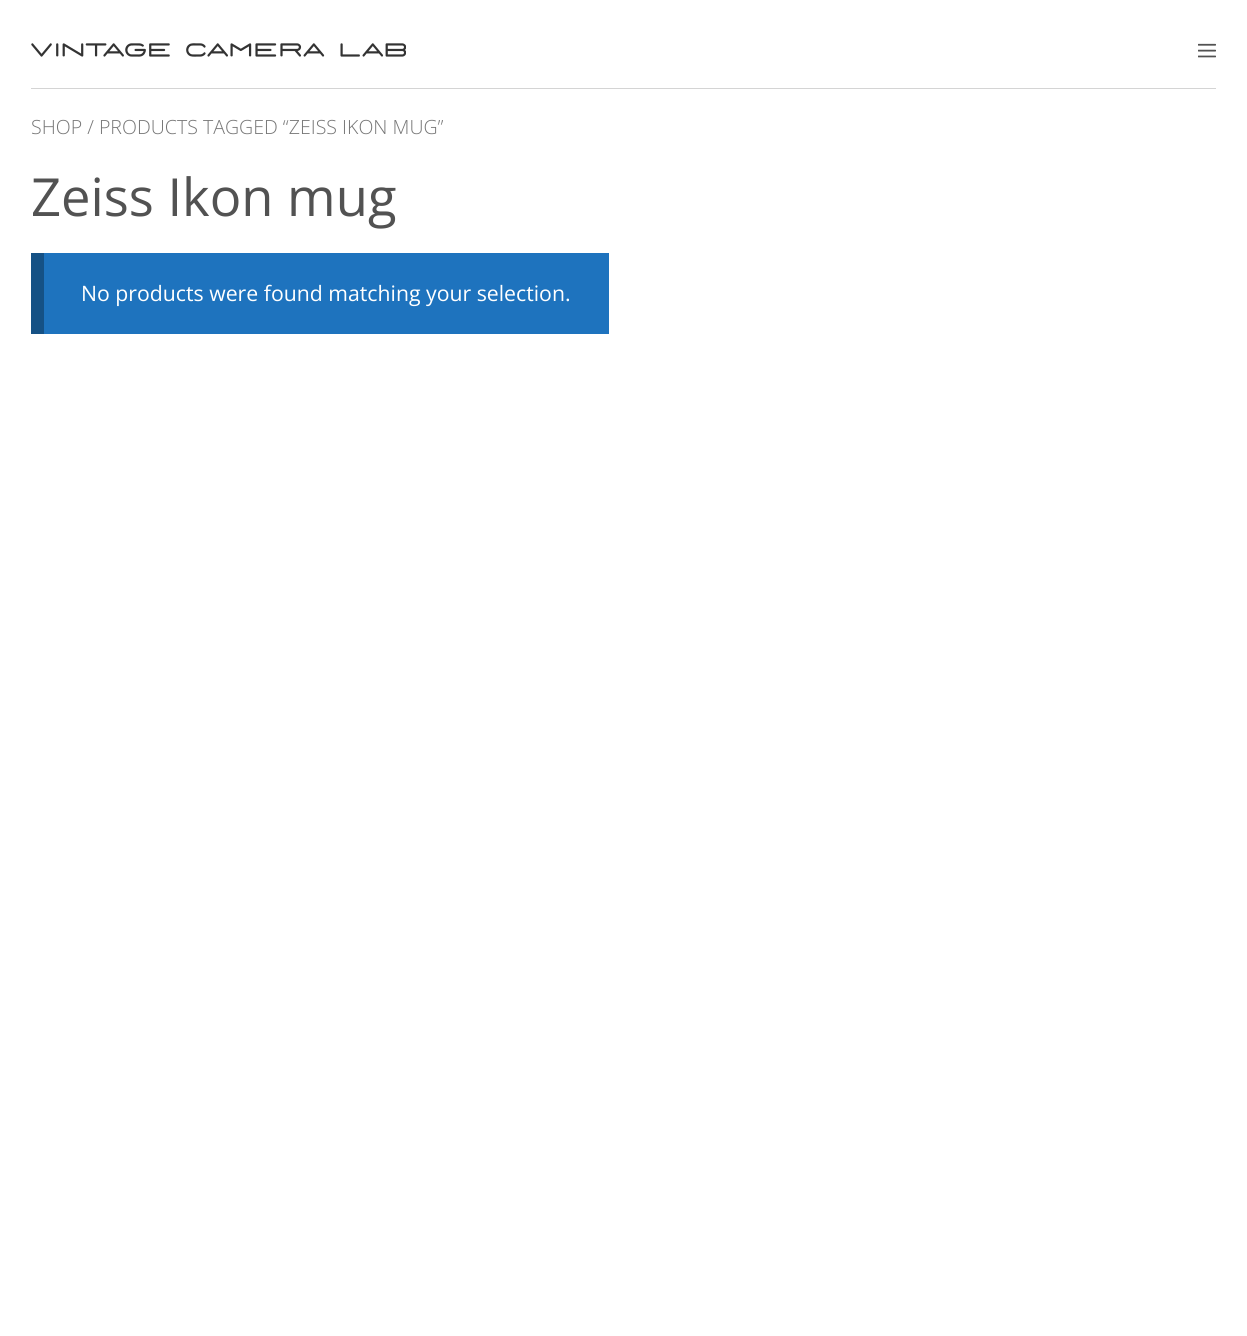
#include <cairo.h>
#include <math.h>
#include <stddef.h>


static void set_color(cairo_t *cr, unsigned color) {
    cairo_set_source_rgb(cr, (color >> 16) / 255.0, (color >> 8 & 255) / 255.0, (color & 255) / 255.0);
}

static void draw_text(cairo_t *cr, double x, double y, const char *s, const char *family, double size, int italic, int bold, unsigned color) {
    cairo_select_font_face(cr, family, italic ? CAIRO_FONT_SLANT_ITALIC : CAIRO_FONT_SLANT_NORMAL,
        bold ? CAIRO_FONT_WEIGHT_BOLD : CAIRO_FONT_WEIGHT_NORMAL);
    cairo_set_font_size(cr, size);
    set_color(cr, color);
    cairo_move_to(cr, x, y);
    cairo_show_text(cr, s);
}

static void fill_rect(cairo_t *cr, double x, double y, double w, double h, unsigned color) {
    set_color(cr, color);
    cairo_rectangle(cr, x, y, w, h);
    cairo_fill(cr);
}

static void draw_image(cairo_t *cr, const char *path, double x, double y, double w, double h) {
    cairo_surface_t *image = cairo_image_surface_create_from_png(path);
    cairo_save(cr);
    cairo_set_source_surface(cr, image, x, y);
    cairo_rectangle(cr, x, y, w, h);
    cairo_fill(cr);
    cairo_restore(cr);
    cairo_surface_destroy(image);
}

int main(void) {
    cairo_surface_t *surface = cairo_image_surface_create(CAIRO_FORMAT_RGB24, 1247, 1336);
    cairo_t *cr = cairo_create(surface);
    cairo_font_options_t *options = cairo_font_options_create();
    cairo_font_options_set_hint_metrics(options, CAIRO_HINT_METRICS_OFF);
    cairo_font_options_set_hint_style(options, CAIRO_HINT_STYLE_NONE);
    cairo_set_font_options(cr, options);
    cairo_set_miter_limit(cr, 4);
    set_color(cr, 0xFFFFFF);
    cairo_paint(cr);
    fill_rect(cr, 31, 88, 1185, 1, 0xD4D4D4);
    draw_image(cr, "assets/img1.png", 31, 43, 375, 14);
    draw_image(cr, "assets/img2.png", 1198, 43, 18, 15);
    draw_text(cr, 31, 134, "SHOP / PRODUCTS TAGGED “ZEISS IKON MUG”", "Open Sans Light", 19.55, 0, 0, 0x767676);
    draw_text(cr, 31, 216, "Zeiss Ikon mug", "Open Sans", 52.5, 0, 0, 0x525252);
    fill_rect(cr, 44, 253, 565, 81, 0x1E73BE);
    fill_rect(cr, 31, 253, 13, 81, 0x155185);
    draw_text(cr, 81, 301, "No products were found matching your selection.", "Open Sans", 21.25, 0, 0, 0xFFFFFF);
    cairo_surface_write_to_png(surface, "output.png");
    cairo_font_options_destroy(options);
    cairo_destroy(cr);
    cairo_surface_destroy(surface);
    return 0;
}
